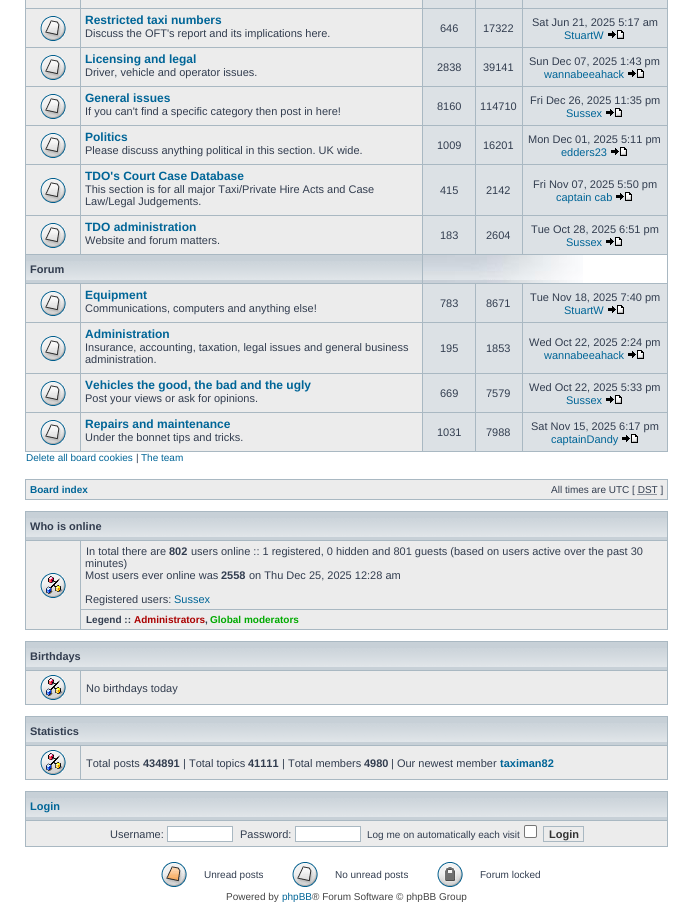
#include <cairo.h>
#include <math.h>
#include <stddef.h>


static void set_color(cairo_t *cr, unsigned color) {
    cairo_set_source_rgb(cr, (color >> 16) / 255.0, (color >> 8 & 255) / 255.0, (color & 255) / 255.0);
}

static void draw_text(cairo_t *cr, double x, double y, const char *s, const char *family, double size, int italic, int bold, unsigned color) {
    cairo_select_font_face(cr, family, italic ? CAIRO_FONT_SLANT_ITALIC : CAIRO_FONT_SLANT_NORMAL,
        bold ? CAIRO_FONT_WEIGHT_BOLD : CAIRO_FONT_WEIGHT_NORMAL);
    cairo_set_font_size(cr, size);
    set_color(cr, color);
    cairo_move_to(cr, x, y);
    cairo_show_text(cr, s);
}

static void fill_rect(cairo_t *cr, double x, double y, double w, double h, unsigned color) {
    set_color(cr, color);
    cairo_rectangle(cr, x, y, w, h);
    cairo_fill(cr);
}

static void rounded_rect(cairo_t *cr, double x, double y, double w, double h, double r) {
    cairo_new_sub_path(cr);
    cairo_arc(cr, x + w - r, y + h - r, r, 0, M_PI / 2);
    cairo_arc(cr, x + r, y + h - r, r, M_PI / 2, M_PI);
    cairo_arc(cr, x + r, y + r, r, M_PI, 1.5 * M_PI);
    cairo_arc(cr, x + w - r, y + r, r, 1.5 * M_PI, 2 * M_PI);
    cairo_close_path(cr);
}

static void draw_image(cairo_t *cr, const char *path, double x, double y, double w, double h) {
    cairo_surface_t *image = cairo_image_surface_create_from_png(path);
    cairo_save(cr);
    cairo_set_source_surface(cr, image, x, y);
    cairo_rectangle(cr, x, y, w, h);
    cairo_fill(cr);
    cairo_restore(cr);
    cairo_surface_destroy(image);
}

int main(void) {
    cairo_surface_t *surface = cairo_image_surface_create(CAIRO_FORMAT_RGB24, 693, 902);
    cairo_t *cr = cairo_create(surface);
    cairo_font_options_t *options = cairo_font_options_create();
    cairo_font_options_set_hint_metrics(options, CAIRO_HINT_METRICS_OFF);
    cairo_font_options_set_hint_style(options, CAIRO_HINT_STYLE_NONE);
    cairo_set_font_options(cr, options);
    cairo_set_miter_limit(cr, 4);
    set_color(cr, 0xFFFFFF);
    cairo_paint(cr);
    fill_rect(cr, 25, 0, 643, 452, 0xA9B8C2);
    fill_rect(cr, 26, 0, 54, 8, 0xECECEC);
    fill_rect(cr, 81, 0, 341, 8, 0xECECEC);
    fill_rect(cr, 423, 0, 52, 8, 0xDCE1E5);
    fill_rect(cr, 476, 0, 46, 8, 0xDCE1E5);
    fill_rect(cr, 523, 0, 144, 8, 0xDCE1E5);
    fill_rect(cr, 26, 9, 54, 38, 0xECECEC);
    draw_image(cr, "assets/img1.png", 40, 16, 26, 25);
    fill_rect(cr, 81, 9, 341, 38, 0xECECEC);
    draw_text(cr, 85, 24, "Restricted taxi numbers", "Liberation Sans", 12, 0, 1, 0x006597);
    draw_text(cr, 85, 37, "Discuss the OFT's report and its implications here.", "Liberation Sans", 11, 0, 0, 0x323D4F);
    fill_rect(cr, 423, 9, 52, 38, 0xDCE1E5);
    draw_text(cr, 440, 32, "646", "Liberation Sans", 11, 0, 0, 0x323D4F);
    fill_rect(cr, 476, 9, 46, 38, 0xDCE1E5);
    draw_text(cr, 483, 32, "17322", "Liberation Sans", 11, 0, 0, 0x323D4F);
    fill_rect(cr, 523, 9, 144, 38, 0xDCE1E5);
    draw_text(cr, 532, 26, "Sat Jun 21, 2025 5:17 am", "Liberation Sans", 11, 0, 0, 0x323D4F);
    draw_text(cr, 564, 39, "StuartW", "Liberation Sans", 11, 0, 0, 0x006597);
    draw_image(cr, "assets/img2.png", 608, 30, 16, 9);
    fill_rect(cr, 26, 48, 54, 38, 0xECECEC);
    draw_image(cr, "assets/img1.png", 40, 55, 26, 25);
    fill_rect(cr, 81, 48, 341, 38, 0xECECEC);
    draw_text(cr, 85, 63, "Licensing and legal", "Liberation Sans", 12, 0, 1, 0x006597);
    draw_text(cr, 85, 76, "Driver, vehicle and operator issues.", "Liberation Sans", 11, 0, 0, 0x323D4F);
    fill_rect(cr, 423, 48, 52, 38, 0xDCE1E5);
    draw_text(cr, 437, 71, "2838", "Liberation Sans", 11, 0, 0, 0x323D4F);
    fill_rect(cr, 476, 48, 46, 38, 0xDCE1E5);
    draw_text(cr, 483, 71, "39141", "Liberation Sans", 11, 0, 0, 0x323D4F);
    fill_rect(cr, 523, 48, 144, 38, 0xDCE1E5);
    draw_text(cr, 529, 65, "Sun Dec 07, 2025 1:43 pm", "Liberation Sans", 11, 0, 0, 0x323D4F);
    draw_text(cr, 544, 78, "wannabeeahack", "Liberation Sans", 11, 0, 0, 0x006597);
    draw_image(cr, "assets/img2.png", 628, 69, 16, 9);
    fill_rect(cr, 26, 87, 54, 38, 0xECECEC);
    draw_image(cr, "assets/img1.png", 40, 94, 26, 25);
    fill_rect(cr, 81, 87, 341, 38, 0xECECEC);
    draw_text(cr, 85, 102, "General issues", "Liberation Sans", 12, 0, 1, 0x006597);
    draw_text(cr, 85, 115, "If you can't find a specific category then post in here!", "Liberation Sans", 11, 0, 0, 0x323D4F);
    fill_rect(cr, 423, 87, 52, 38, 0xDCE1E5);
    draw_text(cr, 437, 110, "8160", "Liberation Sans", 11, 0, 0, 0x323D4F);
    fill_rect(cr, 476, 87, 46, 38, 0xDCE1E5);
    draw_text(cr, 480, 110, "114710", "Liberation Sans", 11, 0, 0, 0x323D4F);
    fill_rect(cr, 523, 87, 144, 38, 0xDCE1E5);
    draw_text(cr, 530, 104, "Fri Dec 26, 2025 11:35 pm", "Liberation Sans", 11, 0, 0, 0x323D4F);
    draw_text(cr, 566, 117, "Sussex", "Liberation Sans", 11, 0, 0, 0x006597);
    draw_image(cr, "assets/img2.png", 606, 108, 16, 9);
    fill_rect(cr, 26, 126, 54, 38, 0xECECEC);
    draw_image(cr, "assets/img1.png", 40, 133, 26, 25);
    fill_rect(cr, 81, 126, 341, 38, 0xECECEC);
    draw_text(cr, 85, 141, "Politics", "Liberation Sans", 12, 0, 1, 0x006597);
    draw_text(cr, 85, 154, "Please discuss anything political in this section. UK wide.", "Liberation Sans", 11, 0, 0, 0x323D4F);
    fill_rect(cr, 423, 126, 52, 38, 0xDCE1E5);
    draw_text(cr, 437, 149, "1009", "Liberation Sans", 11, 0, 0, 0x323D4F);
    fill_rect(cr, 476, 126, 46, 38, 0xDCE1E5);
    draw_text(cr, 483, 149, "16201", "Liberation Sans", 11, 0, 0, 0x323D4F);
    fill_rect(cr, 523, 126, 144, 38, 0xDCE1E5);
    draw_text(cr, 528, 143, "Mon Dec 01, 2025 5:11 pm", "Liberation Sans", 11, 0, 0, 0x323D4F);
    draw_text(cr, 561, 156, "edders23", "Liberation Sans", 11, 0, 0, 0x006597);
    draw_image(cr, "assets/img2.png", 611, 147, 16, 9);
    fill_rect(cr, 26, 165, 54, 50, 0xECECEC);
    draw_image(cr, "assets/img1.png", 40, 178, 26, 25);
    fill_rect(cr, 81, 165, 341, 50, 0xECECEC);
    draw_text(cr, 85, 180, "TDO's Court Case Database", "Liberation Sans", 12, 0, 1, 0x006597);
    draw_text(cr, 85, 193, "This section is for all major Taxi/Private Hire Acts and Case", "Liberation Sans", 11, 0, 0, 0x323D4F);
    draw_text(cr, 85, 205, "Law/Legal Judgements.", "Liberation Sans", 11, 0, 0, 0x323D4F);
    fill_rect(cr, 423, 165, 52, 50, 0xDCE1E5);
    draw_text(cr, 440, 194, "415", "Liberation Sans", 11, 0, 0, 0x323D4F);
    fill_rect(cr, 476, 165, 46, 50, 0xDCE1E5);
    draw_text(cr, 486, 194, "2142", "Liberation Sans", 11, 0, 0, 0x323D4F);
    fill_rect(cr, 523, 165, 144, 50, 0xDCE1E5);
    draw_text(cr, 533, 188, "Fri Nov 07, 2025 5:50 pm", "Liberation Sans", 11, 0, 0, 0x323D4F);
    draw_text(cr, 556, 201, "captain cab", "Liberation Sans", 11, 0, 0, 0x006597);
    draw_image(cr, "assets/img2.png", 616, 192, 16, 9);
    fill_rect(cr, 26, 216, 54, 38, 0xECECEC);
    draw_image(cr, "assets/img1.png", 40, 223, 26, 25);
    fill_rect(cr, 81, 216, 341, 38, 0xECECEC);
    draw_text(cr, 85, 231, "TDO administration", "Liberation Sans", 12, 0, 1, 0x006597);
    draw_text(cr, 85, 244, "Website and forum matters.", "Liberation Sans", 11, 0, 0, 0x323D4F);
    fill_rect(cr, 423, 216, 52, 38, 0xDCE1E5);
    draw_text(cr, 440, 239, "183", "Liberation Sans", 11, 0, 0, 0x323D4F);
    fill_rect(cr, 476, 216, 46, 38, 0xDCE1E5);
    draw_text(cr, 486, 239, "2604", "Liberation Sans", 11, 0, 0, 0x323D4F);
    fill_rect(cr, 523, 216, 144, 38, 0xDCE1E5);
    draw_text(cr, 531, 233, "Tue Oct 28, 2025 6:51 pm", "Liberation Sans", 11, 0, 0, 0x323D4F);
    draw_text(cr, 566, 246, "Sussex", "Liberation Sans", 11, 0, 0, 0x006597);
    draw_image(cr, "assets/img2.png", 606, 237, 16, 9);
    fill_rect(cr, 26, 255, 396, 28, 0xC7D0D7);
    draw_image(cr, "assets/img3.png", 26, 261, 396, 19);
    draw_text(cr, 30, 273, "Forum", "Liberation Sans", 11, 0, 1, 0x323D4F);
    fill_rect(cr, 583, 255, 84, 28, 0xFFFFFF);
    draw_image(cr, "assets/img4.png", 423, 255, 160, 28);
    fill_rect(cr, 26, 284, 54, 38, 0xECECEC);
    draw_image(cr, "assets/img1.png", 40, 291, 26, 25);
    fill_rect(cr, 81, 284, 341, 38, 0xECECEC);
    draw_text(cr, 85, 299, "Equipment", "Liberation Sans", 12, 0, 1, 0x006597);
    draw_text(cr, 85, 312, "Communications, computers and anything else!", "Liberation Sans", 11, 0, 0, 0x323D4F);
    fill_rect(cr, 423, 284, 52, 38, 0xDCE1E5);
    draw_text(cr, 440, 307, "783", "Liberation Sans", 11, 0, 0, 0x323D4F);
    fill_rect(cr, 476, 284, 46, 38, 0xDCE1E5);
    draw_text(cr, 486, 307, "8671", "Liberation Sans", 11, 0, 0, 0x323D4F);
    fill_rect(cr, 523, 284, 144, 38, 0xDCE1E5);
    draw_text(cr, 530, 301, "Tue Nov 18, 2025 7:40 pm", "Liberation Sans", 11, 0, 0, 0x323D4F);
    draw_text(cr, 564, 314, "StuartW", "Liberation Sans", 11, 0, 0, 0x006597);
    draw_image(cr, "assets/img2.png", 608, 305, 16, 9);
    fill_rect(cr, 26, 323, 54, 50, 0xECECEC);
    draw_image(cr, "assets/img1.png", 40, 336, 26, 25);
    fill_rect(cr, 81, 323, 341, 50, 0xECECEC);
    draw_text(cr, 85, 338, "Administration", "Liberation Sans", 12, 0, 1, 0x006597);
    draw_text(cr, 85, 351, "Insurance, accounting, taxation, legal issues and general business", "Liberation Sans", 11, 0, 0, 0x323D4F);
    draw_text(cr, 85, 363, "administration.", "Liberation Sans", 11, 0, 0, 0x323D4F);
    fill_rect(cr, 423, 323, 52, 50, 0xDCE1E5);
    draw_text(cr, 440, 352, "195", "Liberation Sans", 11, 0, 0, 0x323D4F);
    fill_rect(cr, 476, 323, 46, 50, 0xDCE1E5);
    draw_text(cr, 486, 352, "1853", "Liberation Sans", 11, 0, 0, 0x323D4F);
    fill_rect(cr, 523, 323, 144, 50, 0xDCE1E5);
    draw_text(cr, 529, 346, "Wed Oct 22, 2025 2:24 pm", "Liberation Sans", 11, 0, 0, 0x323D4F);
    draw_text(cr, 544, 359, "wannabeeahack", "Liberation Sans", 11, 0, 0, 0x006597);
    draw_image(cr, "assets/img2.png", 628, 350, 16, 9);
    fill_rect(cr, 26, 374, 54, 38, 0xECECEC);
    draw_image(cr, "assets/img1.png", 40, 381, 26, 25);
    fill_rect(cr, 81, 374, 341, 38, 0xECECEC);
    draw_text(cr, 85, 389, "Vehicles the good, the bad and the ugly", "Liberation Sans", 12, 0, 1, 0x006597);
    draw_text(cr, 85, 402, "Post your views or ask for opinions.", "Liberation Sans", 11, 0, 0, 0x323D4F);
    fill_rect(cr, 423, 374, 52, 38, 0xDCE1E5);
    draw_text(cr, 440, 397, "669", "Liberation Sans", 11, 0, 0, 0x323D4F);
    fill_rect(cr, 476, 374, 46, 38, 0xDCE1E5);
    draw_text(cr, 486, 397, "7579", "Liberation Sans", 11, 0, 0, 0x323D4F);
    fill_rect(cr, 523, 374, 144, 38, 0xDCE1E5);
    draw_text(cr, 529, 391, "Wed Oct 22, 2025 5:33 pm", "Liberation Sans", 11, 0, 0, 0x323D4F);
    draw_text(cr, 566, 404, "Sussex", "Liberation Sans", 11, 0, 0, 0x006597);
    draw_image(cr, "assets/img2.png", 606, 395, 16, 9);
    fill_rect(cr, 26, 413, 54, 38, 0xECECEC);
    draw_image(cr, "assets/img1.png", 40, 420, 26, 25);
    fill_rect(cr, 81, 413, 341, 38, 0xECECEC);
    draw_text(cr, 85, 428, "Repairs and maintenance", "Liberation Sans", 12, 0, 1, 0x006597);
    draw_text(cr, 85, 441, "Under the bonnet tips and tricks.", "Liberation Sans", 11, 0, 0, 0x323D4F);
    fill_rect(cr, 423, 413, 52, 38, 0xDCE1E5);
    draw_text(cr, 437, 436, "1031", "Liberation Sans", 11, 0, 0, 0x323D4F);
    fill_rect(cr, 476, 413, 46, 38, 0xDCE1E5);
    draw_text(cr, 486, 436, "7988", "Liberation Sans", 11, 0, 0, 0x323D4F);
    fill_rect(cr, 523, 413, 144, 38, 0xDCE1E5);
    draw_text(cr, 531, 430, "Sat Nov 15, 2025 6:17 pm", "Liberation Sans", 11, 0, 0, 0x323D4F);
    draw_text(cr, 551, 443, "captainDandy", "Liberation Sans", 11, 0, 0, 0x006597);
    draw_image(cr, "assets/img2.png", 622, 434, 16, 9);
    draw_text(cr, 26, 461, "Delete all board cookies", "Liberation Sans", 10, 0, 0, 0x006597);
    draw_text(cr, 136, 461, "|", "Liberation Sans", 10, 0, 0, 0x323D4F);
    draw_text(cr, 141, 461, "The team", "Liberation Sans", 10, 0, 0, 0x006597);
    fill_rect(cr, 25, 479, 643, 21, 0xA9B8C2);
    fill_rect(cr, 26, 480, 641, 19, 0xECECEC);
    draw_text(cr, 30, 493, "Board index", "Liberation Sans", 10, 0, 1, 0x006597);
    draw_text(cr, 551, 493, "All times are UTC [ DST ]", "Liberation Sans", 10, 0, 0, 0x323D4F);
    cairo_new_path(cr);
    cairo_move_to(cr, 637.5, 494.5);
    cairo_line_to(cr, 657.5, 494.5);
    cairo_set_line_width(cr, 1);
    cairo_set_dash(cr, (double[]){1, 1}, 2, 0);
    cairo_stroke(cr);
    fill_rect(cr, 25, 511, 643, 119, 0xA9B8C2);
    fill_rect(cr, 26, 512, 641, 28, 0xC7D0D7);
    draw_image(cr, "assets/img5.png", 26, 518, 641, 19);
    draw_text(cr, 30, 530, "Who is online", "Liberation Sans", 11, 0, 1, 0x323D4F);
    fill_rect(cr, 26, 541, 54, 88, 0xECECEC);
    draw_image(cr, "assets/img6.png", 40, 573, 26, 25);
    fill_rect(cr, 81, 541, 586, 68, 0xECECEC);
    draw_text(cr, 86, 555, "In total there are", "Liberation Sans", 11, 0, 0, 0x323D4F);
    draw_text(cr, 169, 555, "802", "Liberation Sans", 11, 0, 1, 0x323D4F);
    draw_text(cr, 191, 555, "users online :: 1 registered, 0 hidden and 801 guests (based on users active over the past 30", "Liberation Sans", 11, 0, 0, 0x323D4F);
    draw_text(cr, 85, 567, "minutes)", "Liberation Sans", 11, 0, 0, 0x323D4F);
    draw_text(cr, 85, 579, "Most users ever online was", "Liberation Sans", 11, 0, 0, 0x323D4F);
    draw_text(cr, 221, 579, "2558", "Liberation Sans", 11, 0, 1, 0x323D4F);
    draw_text(cr, 249, 579, "on Thu Dec 25, 2025 12:28 am", "Liberation Sans", 11, 0, 0, 0x323D4F);
    draw_text(cr, 85, 603, "Registered users:", "Liberation Sans", 11, 0, 0, 0x323D4F);
    draw_text(cr, 174, 603, "Sussex", "Liberation Sans", 11, 0, 0, 0x006597);
    fill_rect(cr, 81, 610, 586, 19, 0xECECEC);
    draw_text(cr, 86, 623, "Legend ::", "Liberation Sans", 10, 0, 1, 0x323D4F);
    draw_text(cr, 134, 623, "Administrators", "Liberation Sans", 10, 0, 1, 0xAA0000);
    draw_text(cr, 205, 623, ",", "Liberation Sans", 10, 0, 1, 0x323D4F);
    draw_text(cr, 210, 623, "Global moderators", "Liberation Sans", 10, 0, 1, 0x00AA00);
    fill_rect(cr, 25, 641, 643, 64, 0xA9B8C2);
    fill_rect(cr, 26, 642, 641, 28, 0xC7D0D7);
    draw_image(cr, "assets/img5.png", 26, 648, 641, 19);
    draw_text(cr, 30, 660, "Birthdays", "Liberation Sans", 11, 0, 1, 0x323D4F);
    fill_rect(cr, 26, 671, 54, 33, 0xECECEC);
    draw_image(cr, "assets/img6.png", 40, 675, 26, 25);
    fill_rect(cr, 81, 671, 586, 33, 0xECECEC);
    draw_text(cr, 86, 692, "No birthdays today", "Liberation Sans", 11, 0, 0, 0x323D4F);
    fill_rect(cr, 25, 716, 643, 64, 0xA9B8C2);
    fill_rect(cr, 26, 717, 641, 28, 0xC7D0D7);
    draw_image(cr, "assets/img5.png", 26, 723, 641, 19);
    draw_text(cr, 30, 735, "Statistics", "Liberation Sans", 11, 0, 1, 0x323D4F);
    fill_rect(cr, 26, 746, 54, 33, 0xECECEC);
    draw_image(cr, "assets/img6.png", 40, 750, 26, 25);
    fill_rect(cr, 81, 746, 586, 33, 0xECECEC);
    draw_text(cr, 86, 767, "Total posts", "Liberation Sans", 11, 0, 0, 0x323D4F);
    draw_text(cr, 143, 767, "434891", "Liberation Sans", 11, 0, 1, 0x323D4F);
    draw_text(cr, 183, 767, "| Total topics", "Liberation Sans", 11, 0, 0, 0x323D4F);
    draw_text(cr, 248, 767, "41111", "Liberation Sans", 11, 0, 1, 0x323D4F);
    draw_text(cr, 282, 767, "| Total members", "Liberation Sans", 11, 0, 0, 0x323D4F);
    draw_text(cr, 364, 767, "4980", "Liberation Sans", 11, 0, 1, 0x323D4F);
    draw_text(cr, 391, 767, "| Our newest member", "Liberation Sans", 11, 0, 0, 0x323D4F);
    draw_text(cr, 500, 767, "taximan82", "Liberation Sans", 11, 0, 1, 0x006597);
    fill_rect(cr, 25, 791, 643, 56, 0xA9B8C2);
    fill_rect(cr, 26, 792, 641, 28, 0xC7D0D7);
    draw_image(cr, "assets/img5.png", 26, 798, 641, 19);
    draw_text(cr, 30, 810, "Login", "Liberation Sans", 11, 0, 1, 0x006597);
    fill_rect(cr, 26, 821, 641, 25, 0xECECEC);
    draw_text(cr, 110, 838, "Username:", "Liberation Sans", 11, 0, 0, 0x323D4F);
    set_color(cr, 0xFFFFFF);
    cairo_rectangle(cr, 167.5, 826.5, 65, 15);
    cairo_fill_preserve(cr);
    set_color(cr, 0xA9B8C2);
    cairo_set_dash(cr, NULL, 0, 0);
    cairo_stroke(cr);
    draw_text(cr, 240, 838, "Password:", "Liberation Sans", 11, 0, 0, 0x323D4F);
    set_color(cr, 0xFFFFFF);
    cairo_rectangle(cr, 295.5, 826.5, 65, 15);
    cairo_fill_preserve(cr);
    set_color(cr, 0xA9B8C2);
    cairo_stroke(cr);
    draw_text(cr, 367, 838, "Log me on automatically each visit", "Liberation Sans", 10, 0, 0, 0x323D4F);
    set_color(cr, 0xFFFFFF);
    rounded_rect(cr, 524.5, 825.5, 12, 12, 1.5);
    cairo_fill_preserve(cr);
    set_color(cr, 0x767676);
    cairo_stroke(cr);
    cairo_rectangle(cr, 543.5, 826.5, 40, 15);
    set_color(cr, 0xA9B8C2);
    cairo_stroke(cr);
    draw_text(cr, 549, 838, "Login", "Liberation Sans", 11, 0, 1, 0x333333);
    draw_image(cr, "assets/img7.png", 161, 862, 26, 25);
    draw_text(cr, 204, 878, "Unread posts", "Liberation Sans", 10, 0, 0, 0x323D4F);
    draw_image(cr, "assets/img8.png", 292, 862, 26, 25);
    draw_text(cr, 335, 878, "No unread posts", "Liberation Sans", 10, 0, 0, 0x323D4F);
    draw_image(cr, "assets/img9.png", 437, 862, 26, 25);
    draw_text(cr, 480, 878, "Forum locked", "Liberation Sans", 10, 0, 0, 0x323D4F);
    draw_text(cr, 226, 900, "Powered by", "Liberation Sans", 10, 0, 0, 0x444444);
    draw_text(cr, 282, 900, "phpBB", "Liberation Sans", 10, 0, 0, 0x006597);
    draw_text(cr, 312, 900, "® Forum Software © phpBB Group", "Liberation Sans", 10, 0, 0, 0x444444);
    cairo_surface_write_to_png(surface, "output.png");
    cairo_font_options_destroy(options);
    cairo_destroy(cr);
    cairo_surface_destroy(surface);
    return 0;
}
